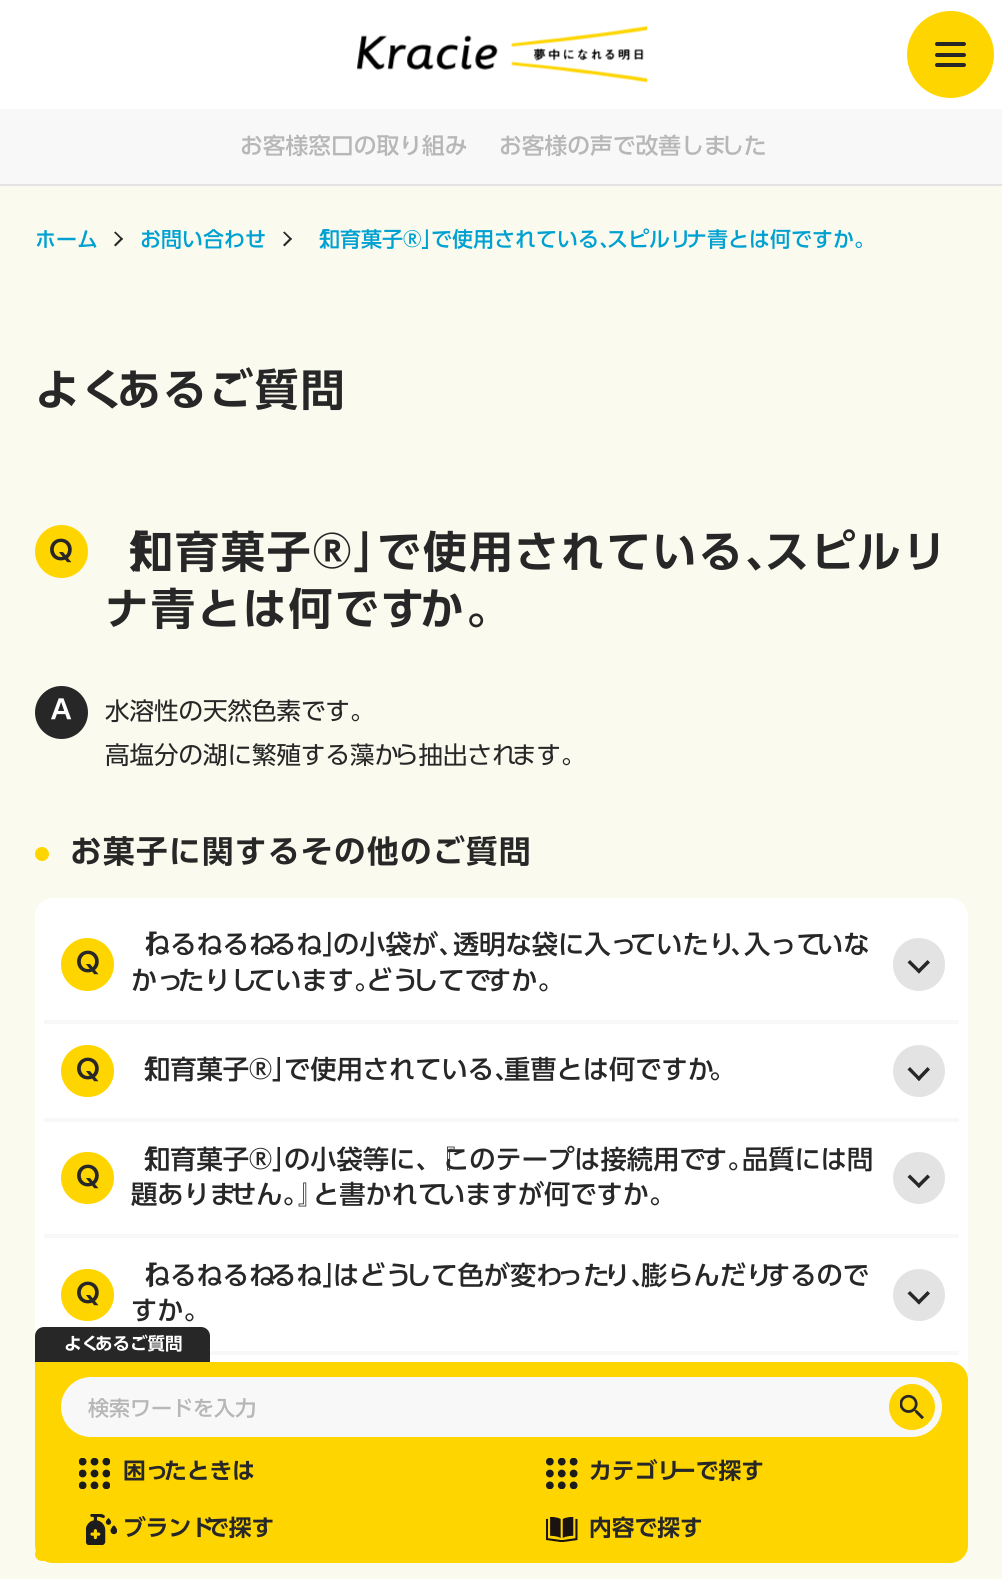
#include <cairo.h>
#include <math.h>
#include <stddef.h>


static void set_color(cairo_t *cr, unsigned color) {
    cairo_set_source_rgb(cr, (color >> 16) / 255.0, (color >> 8 & 255) / 255.0, (color & 255) / 255.0);
}

static void draw_text(cairo_t *cr, double x, double y, const char *s, const char *family, double size, int italic, int bold, unsigned color) {
    cairo_select_font_face(cr, family, italic ? CAIRO_FONT_SLANT_ITALIC : CAIRO_FONT_SLANT_NORMAL,
        bold ? CAIRO_FONT_WEIGHT_BOLD : CAIRO_FONT_WEIGHT_NORMAL);
    cairo_set_font_size(cr, size);
    set_color(cr, color);
    cairo_move_to(cr, x, y);
    cairo_show_text(cr, s);
}

static void draw_spaced(cairo_t *cr, double x, double y, const char *s, double letter, double word) {
    cairo_move_to(cr, x, y);
    while (*s) {
        char ch[5] = {0};
        int n = 0;
        do ch[n++] = *s++; while ((*s & 0xC0) == 0x80);
        cairo_show_text(cr, ch);
        cairo_rel_move_to(cr, letter + word * (*ch == ' '), 0);
    }
}

static void fill_rect(cairo_t *cr, double x, double y, double w, double h, unsigned color) {
    set_color(cr, color);
    cairo_rectangle(cr, x, y, w, h);
    cairo_fill(cr);
}

static void rounded_rect(cairo_t *cr, double x, double y, double w, double h, double r) {
    cairo_new_sub_path(cr);
    cairo_arc(cr, x + w - r, y + h - r, r, 0, M_PI / 2);
    cairo_arc(cr, x + r, y + h - r, r, M_PI / 2, M_PI);
    cairo_arc(cr, x + r, y + r, r, M_PI, 1.5 * M_PI);
    cairo_arc(cr, x + w - r, y + r, r, 1.5 * M_PI, 2 * M_PI);
    cairo_close_path(cr);
}

static void draw_image(cairo_t *cr, const char *path, double x, double y, double w, double h) {
    cairo_surface_t *image = cairo_image_surface_create_from_png(path);
    cairo_save(cr);
    cairo_set_source_surface(cr, image, x, y);
    cairo_rectangle(cr, x, y, w, h);
    cairo_fill(cr);
    cairo_restore(cr);
    cairo_surface_destroy(image);
}

int main(void) {
    cairo_surface_t *surface = cairo_image_surface_create(CAIRO_FORMAT_RGB24, 1002, 1579);
    cairo_t *cr = cairo_create(surface);
    cairo_font_options_t *options = cairo_font_options_create();
    cairo_font_options_set_hint_metrics(options, CAIRO_HINT_METRICS_OFF);
    cairo_font_options_set_hint_style(options, CAIRO_HINT_STYLE_NONE);
    cairo_set_font_options(cr, options);
    cairo_set_miter_limit(cr, 4);
    set_color(cr, 0xFAFAEF);
    cairo_paint(cr);
    fill_rect(cr, 0, 0, 1002, 109, 0xFFFFFF);
    draw_image(cr, "assets/img1.png", 357, 26, 291, 57);
    set_color(cr, 0xFFD500);
    cairo_arc(cr, 950.5, 54.5, 43.5, 0, 2 * M_PI);
    cairo_fill(cr);
    set_color(cr, 0x272727);
    rounded_rect(cr, 935, 42, 31, 4, 2);
    cairo_fill(cr);
    rounded_rect(cr, 935, 53, 31, 4, 2);
    cairo_fill(cr);
    rounded_rect(cr, 935, 63, 31, 4, 2);
    cairo_fill(cr);
    fill_rect(cr, 0, 109, 1002, 75, 0xF8F8F8);
    fill_rect(cr, 0, 184, 1002, 2, 0xE3E3E3);
    draw_text(cr, 240, 154, "お客様窓口の取り組み", "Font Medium", 22.75, 0, 0, 0xB7B7B7);
    draw_text(cr, 499, 154, "お客様の声で改善しま", "Font Medium", 22.75, 0, 0, 0xB7B7B7);
    draw_text(cr, 721, 154, "した", "Font Medium", 22.75, 0, 0, 0xB7B7B7);
    draw_text(cr, 35, 247, "ホーム", "Font Medium", 21, 0, 0, 0x00A1D1);
    set_color(cr, 0x272727);
    cairo_new_path(cr);
    cairo_move_to(cr, 115.5, 231.5);
    cairo_line_to(cr, 123, 239);
    cairo_line_to(cr, 121.5, 240);
    cairo_line_to(cr, 114, 232.5);
    cairo_close_path(cr);
    cairo_fill(cr);
    cairo_new_path(cr);
    cairo_move_to(cr, 121.5, 237.5);
    cairo_line_to(cr, 123, 239);
    cairo_line_to(cr, 115.5, 246.5);
    cairo_line_to(cr, 114, 245);
    cairo_close_path(cr);
    cairo_fill(cr);
    draw_text(cr, 140, 247, "お問い合わせ", "Font Medium", 21, 0, 0, 0x00A1D1);
    set_color(cr, 0x272727);
    cairo_new_path(cr);
    cairo_move_to(cr, 284.5, 231.5);
    cairo_line_to(cr, 292, 239);
    cairo_line_to(cr, 290.5, 240);
    cairo_line_to(cr, 283, 232.5);
    cairo_close_path(cr);
    cairo_fill(cr);
    cairo_new_path(cr);
    cairo_move_to(cr, 290.5, 237.5);
    cairo_line_to(cr, 292, 239);
    cairo_line_to(cr, 284.5, 246.5);
    cairo_line_to(cr, 283, 245);
    cairo_close_path(cr);
    cairo_fill(cr);
    draw_text(cr, 309, 247, "「", "Font Medium", 21, 0, 0, 0x00A1D1);
    draw_text(cr, 319, 247, "知育菓子®」", "Font Medium", 21, 0, 0, 0x00A1D1);
    draw_text(cr, 431, 247, "で使用されている、", "Font Medium", 21, 0, 0, 0x00A1D1);
    draw_text(cr, 607, 247, "スピルリ", "Font Medium", 21, 0, 0, 0x00A1D1);
    draw_text(cr, 686, 247, "ナ青とは何ですか。", "Font Medium", 21, 0, 0, 0x00A1D1);
    cairo_select_font_face(cr, "Font SemiBold", CAIRO_FONT_SLANT_NORMAL, CAIRO_FONT_WEIGHT_NORMAL);
    cairo_set_font_size(cr, 43.75);
    set_color(cr, 0x272727);
    draw_spaced(cr, 35, 406, "よく", 2.2, 0);
    draw_spaced(cr, 117, 406, "あるご質問", 2.2, 0);
    set_color(cr, 0xFFD500);
    cairo_new_path(cr);
    cairo_arc(cr, 61.5, 551.5, 26.5, 0, 2 * M_PI);
    cairo_fill(cr);
    draw_image(cr, "assets/img2.png", 50, 538, 22, 25);
    set_color(cr, 0x272727);
    draw_spaced(cr, 105, 568, "「", 2.2, 0);
    draw_spaced(cr, 129, 568, "知育菓子®」", 2.2, 0);
    draw_spaced(cr, 377, 568, "で使用されている、", 2.2, 0);
    draw_spaced(cr, 765, 568, "スピルリ", 2.2, 0);
    draw_spaced(cr, 105, 625, "ナ青とは何です", 2.2, 0);
    draw_spaced(cr, 420, 625, "か。", 2.2, 0);
    cairo_new_path(cr);
    cairo_arc(cr, 61.5, 712.5, 26.5, 0, 2 * M_PI);
    cairo_fill(cr);
    draw_image(cr, "assets/img3.png", 51, 698, 21, 22);
    draw_text(cr, 105, 720, "水溶性の天然色素です。", "Font", 24.5, 0, 0, 0x272727);
    draw_text(cr, 105, 764, "高塩分の湖に繁殖する藻か", "Font", 24.5, 0, 0, 0x272727);
    draw_text(cr, 394, 764, "ら抽出され", "Font", 24.5, 0, 0, 0x272727);
    draw_text(cr, 512, 764, "ます。", "Font", 24.5, 0, 0, 0x272727);
    set_color(cr, 0xFFD500);
    cairo_new_path(cr);
    cairo_arc(cr, 42, 854, 7, 0, 2 * M_PI);
    cairo_fill(cr);
    cairo_select_font_face(cr, "Font SemiBold", CAIRO_FONT_SLANT_NORMAL, CAIRO_FONT_WEIGHT_NORMAL);
    cairo_set_font_size(cr, 31.5);
    set_color(cr, 0x272727);
    draw_spaced(cr, 70, 863, "お菓子に関するその他のご質問", 1.5, 0);
    set_color(cr, 0xFFFFFF);
    rounded_rect(cr, 39.5, 902.5, 924, 572, 13.5);
    cairo_fill_preserve(cr);
    cairo_set_line_width(cr, 9);
    cairo_stroke(cr);
    fill_rect(cr, 44, 1020, 915, 4, 0xF8F8F8);
    set_color(cr, 0xFFD500);
    cairo_arc(cr, 87.5, 964.5, 26.5, 0, 2 * M_PI);
    cairo_fill(cr);
    draw_text(cr, 76, 972, "Q", "Font SemiBold", 26.25, 0, 0, 0x272727);
    draw_text(cr, 131, 954, "「", "Font Medium", 26.25, 0, 0, 0x272727);
    draw_text(cr, 144, 954, "ねるねるね", "Font Medium", 26.25, 0, 0, 0x272727);
    draw_text(cr, 270, 954, "るね」", "Font Medium", 26.25, 0, 0, 0x272727);
    draw_text(cr, 333, 954, "の小袋が、", "Font Medium", 26.25, 0, 0, 0x272727);
    draw_text(cr, 453, 954, "透明な袋に入っ", "Font Medium", 26.25, 0, 0, 0x272727);
    draw_text(cr, 630, 954, "ていたり", "Font Medium", 26.25, 0, 0, 0x272727);
    draw_text(cr, 730, 954, "、", "Font Medium", 26.25, 0, 0, 0x272727);
    draw_text(cr, 744, 954, "入って", "Font Medium", 26.25, 0, 0, 0x272727);
    draw_text(cr, 817, 954, "いな", "Font Medium", 26.25, 0, 0, 0x272727);
    draw_text(cr, 131, 990, "かっ", "Font Medium", 26.25, 0, 0, 0x272727);
    draw_text(cr, 178, 990, "たりし", "Font Medium", 26.25, 0, 0, 0x272727);
    draw_text(cr, 249, 990, "ています。", "Font Medium", 26.25, 0, 0, 0x272727);
    draw_text(cr, 366, 990, "どう", "Font Medium", 26.25, 0, 0, 0x272727);
    draw_text(cr, 412, 990, "してで", "Font Medium", 26.25, 0, 0, 0x272727);
    draw_text(cr, 485, 990, "すか。", "Font Medium", 26.25, 0, 0, 0x272727);
    set_color(cr, 0xE3E3E3);
    rounded_rect(cr, 893, 938, 52, 53, 26);
    cairo_fill(cr);
    set_color(cr, 0x272727);
    cairo_new_path(cr);
    cairo_move_to(cr, 927.5, 960);
    cairo_line_to(cr, 930, 962.5);
    cairo_line_to(cr, 919, 973.5);
    cairo_line_to(cr, 916.5, 971);
    cairo_close_path(cr);
    cairo_fill(cr);
    cairo_new_path(cr);
    cairo_move_to(cr, 910, 960);
    cairo_line_to(cr, 921, 971);
    cairo_line_to(cr, 919, 973.5);
    cairo_line_to(cr, 907.5, 962.5);
    cairo_close_path(cr);
    cairo_fill(cr);
    fill_rect(cr, 44, 1118, 915, 4, 0xF8F8F8);
    set_color(cr, 0xFFD500);
    rounded_rect(cr, 61, 1045, 53, 52, 26);
    cairo_fill(cr);
    draw_text(cr, 76, 1079, "Q", "Font SemiBold", 26.25, 0, 0, 0x272727);
    draw_text(cr, 131, 1079, "「", "Font Medium", 26.25, 0, 0, 0x272727);
    draw_text(cr, 144, 1079, "知育菓子®」", "Font Medium", 26.25, 0, 0, 0x272727);
    draw_text(cr, 284, 1079, "で使用されている、", "Font Medium", 26.25, 0, 0, 0x272727);
    draw_text(cr, 504, 1079, "重曹とは何ですか", "Font Medium", 26.25, 0, 0, 0x272727);
    draw_text(cr, 709, 1079, "。", "Font Medium", 26.25, 0, 0, 0x272727);
    set_color(cr, 0xE3E3E3);
    cairo_new_path(cr);
    cairo_arc(cr, 919, 1071, 26, 0, 2 * M_PI);
    cairo_fill(cr);
    set_color(cr, 0x272727);
    cairo_new_path(cr);
    cairo_move_to(cr, 927.5, 1067);
    cairo_line_to(cr, 930, 1069.5);
    cairo_line_to(cr, 919, 1081);
    cairo_line_to(cr, 916.5, 1078.5);
    cairo_close_path(cr);
    cairo_fill(cr);
    cairo_new_path(cr);
    cairo_move_to(cr, 910, 1067);
    cairo_line_to(cr, 921, 1078.5);
    cairo_line_to(cr, 919, 1081);
    cairo_line_to(cr, 907.5, 1069.5);
    cairo_close_path(cr);
    cairo_fill(cr);
    fill_rect(cr, 44, 1234, 915, 4, 0xF8F8F8);
    set_color(cr, 0xFFD500);
    rounded_rect(cr, 61, 1152, 53, 52, 26);
    cairo_fill(cr);
    draw_text(cr, 76, 1186, "Q", "Font SemiBold", 26.25, 0, 0, 0x272727);
    draw_text(cr, 131, 1169, "「", "Font Medium", 26.25, 0, 0, 0x272727);
    draw_text(cr, 144, 1169, "知育菓子®」", "Font Medium", 26.25, 0, 0, 0x272727);
    draw_text(cr, 284, 1169, "の小袋等に、", "Font Medium", 26.25, 0, 0, 0x272727);
    draw_text(cr, 429, 1169, "『", "Font Medium", 26.25, 0, 0, 0x272727);
    draw_text(cr, 443, 1169, "このテープは接続用で", "Font Medium", 26.25, 0, 0, 0x272727);
    draw_text(cr, 701, 1169, "す。", "Font Medium", 26.25, 0, 0, 0x272727);
    draw_text(cr, 742, 1169, "品質には問", "Font Medium", 26.25, 0, 0, 0x272727);
    draw_text(cr, 131, 1204, "題ありま", "Font Medium", 26.25, 0, 0, 0x272727);
    draw_text(cr, 230, 1204, "せん。", "Font Medium", 26.25, 0, 0, 0x272727);
    draw_text(cr, 298, 1204, "』", "Font Medium", 26.25, 0, 0, 0x272727);
    draw_text(cr, 313, 1204, "と書かれて", "Font Medium", 26.25, 0, 0, 0x272727);
    draw_text(cr, 439, 1204, "いますが何ですか。", "Font Medium", 26.25, 0, 0, 0x272727);
    set_color(cr, 0xE3E3E3);
    cairo_new_path(cr);
    cairo_arc(cr, 919, 1178, 26, 0, 2 * M_PI);
    cairo_fill(cr);
    set_color(cr, 0x272727);
    cairo_new_path(cr);
    cairo_move_to(cr, 927.5, 1174.5);
    cairo_line_to(cr, 930, 1177);
    cairo_line_to(cr, 919, 1188);
    cairo_line_to(cr, 916.5, 1185.5);
    cairo_close_path(cr);
    cairo_fill(cr);
    cairo_new_path(cr);
    cairo_move_to(cr, 910, 1174.5);
    cairo_line_to(cr, 921, 1185.5);
    cairo_line_to(cr, 919, 1188);
    cairo_line_to(cr, 907.5, 1177);
    cairo_close_path(cr);
    cairo_fill(cr);
    fill_rect(cr, 210, 1351, 749, 4, 0xF8F8F8);
    set_color(cr, 0xFFD500);
    rounded_rect(cr, 61, 1269, 53, 52, 26);
    cairo_fill(cr);
    draw_text(cr, 76, 1303, "Q", "Font SemiBold", 26.25, 0, 0, 0x272727);
    draw_text(cr, 131, 1285, "「", "Font Medium", 26.25, 0, 0, 0x272727);
    draw_text(cr, 144, 1285, "ねるねるね", "Font Medium", 26.25, 0, 0, 0x272727);
    draw_text(cr, 270, 1285, "るね」", "Font Medium", 26.25, 0, 0, 0x272727);
    draw_text(cr, 333, 1285, "はどう", "Font Medium", 26.25, 0, 0, 0x272727);
    draw_text(cr, 405, 1285, "して色が変わ", "Font Medium", 26.25, 0, 0, 0x272727);
    draw_text(cr, 557, 1285, "った", "Font Medium", 26.25, 0, 0, 0x272727);
    draw_text(cr, 604, 1285, "り、", "Font Medium", 26.25, 0, 0, 0x272727);
    draw_text(cr, 641, 1285, "膨らんだり", "Font Medium", 26.25, 0, 0, 0x272727);
    draw_text(cr, 764, 1285, "するので", "Font Medium", 26.25, 0, 0, 0x272727);
    draw_text(cr, 131, 1320, "すか。", "Font Medium", 26.25, 0, 0, 0x272727);
    set_color(cr, 0xE3E3E3);
    cairo_new_path(cr);
    cairo_arc(cr, 919, 1295, 26, 0, 2 * M_PI);
    cairo_fill(cr);
    set_color(cr, 0x272727);
    cairo_new_path(cr);
    cairo_move_to(cr, 927.5, 1291);
    cairo_line_to(cr, 930, 1293.5);
    cairo_line_to(cr, 919, 1304.5);
    cairo_line_to(cr, 916.5, 1302);
    cairo_close_path(cr);
    cairo_fill(cr);
    cairo_new_path(cr);
    cairo_move_to(cr, 910, 1291);
    cairo_line_to(cr, 921, 1302);
    cairo_line_to(cr, 919, 1304.5);
    cairo_line_to(cr, 907.5, 1293.5);
    cairo_close_path(cr);
    cairo_fill(cr);
    set_color(cr, 0xFFD500);
    cairo_arc(cr, 42, 1554, 7, 0, 2 * M_PI);
    cairo_fill(cr);
    cairo_new_path(cr);
    cairo_move_to(cr, 35, 1362);
    cairo_line_to(cr, 950, 1362);
    cairo_curve_to(cr, 960, 1362, 968, 1370, 968, 1380);
    cairo_line_to(cr, 968, 1545);
    cairo_curve_to(cr, 968, 1555, 960, 1563, 950, 1563);
    cairo_line_to(cr, 53, 1563);
    cairo_curve_to(cr, 43, 1563, 35, 1555, 35, 1545);
    cairo_close_path(cr);
    cairo_fill(cr);
    set_color(cr, 0x272727);
    cairo_new_path(cr);
    cairo_move_to(cr, 44, 1327);
    cairo_line_to(cr, 201, 1327);
    cairo_curve_to(cr, 206, 1327, 210, 1331, 210, 1336);
    cairo_line_to(cr, 210, 1362);
    cairo_line_to(cr, 35, 1362);
    cairo_line_to(cr, 35, 1336);
    cairo_curve_to(cr, 35, 1331, 39, 1327, 44, 1327);
    cairo_close_path(cr);
    cairo_fill(cr);
    draw_text(cr, 64, 1350, "よく", "Font SemiBold", 17.5, 0, 0, 0xFFFFFF);
    draw_text(cr, 95, 1350, "あるご質問", "Font SemiBold", 17.5, 0, 0, 0xFFFFFF);
    set_color(cr, 0xF8F8F8);
    rounded_rect(cr, 61, 1377, 881, 60, 30);
    cairo_fill(cr);
    draw_text(cr, 88, 1416, "検索ワードを入力", "Font Medium", 21, 0, 0, 0xB7B7B7);
    set_color(cr, 0xFFD500);
    cairo_new_path(cr);
    cairo_arc(cr, 912, 1407, 23, 0, 2 * M_PI);
    cairo_fill(cr);
    draw_image(cr, "assets/img4.png", 900, 1394, 24, 26);
    draw_image(cr, "assets/img5.png", 79, 1458, 31, 31);
    draw_text(cr, 123, 1479, "困っ", "Font SemiBold", 22.75, 0, 0, 0x272727);
    draw_text(cr, 164, 1479, "たときは", "Font SemiBold", 22.75, 0, 0, 0x272727);
    draw_image(cr, "assets/img6.png", 546, 1458, 32, 31);
    draw_text(cr, 589, 1479, "カテゴリ", "Font SemiBold", 22.75, 0, 0, 0x272727);
    draw_text(cr, 673, 1479, "ーで探す", "Font SemiBold", 22.75, 0, 0, 0x272727);
    draw_image(cr, "assets/img7.png", 86, 1514, 31, 31);
    draw_text(cr, 123, 1536, "ブランド", "Font SemiBold", 22.75, 0, 0, 0x272727);
    draw_text(cr, 206, 1536, "で探す", "Font SemiBold", 22.75, 0, 0, 0x272727);
    draw_image(cr, "assets/img8.png", 546, 1517, 32, 25);
    draw_text(cr, 589, 1536, "内容で探す", "Font SemiBold", 22.75, 0, 0, 0x272727);
    cairo_surface_write_to_png(surface, "output.png");
    cairo_font_options_destroy(options);
    cairo_destroy(cr);
    cairo_surface_destroy(surface);
    return 0;
}
